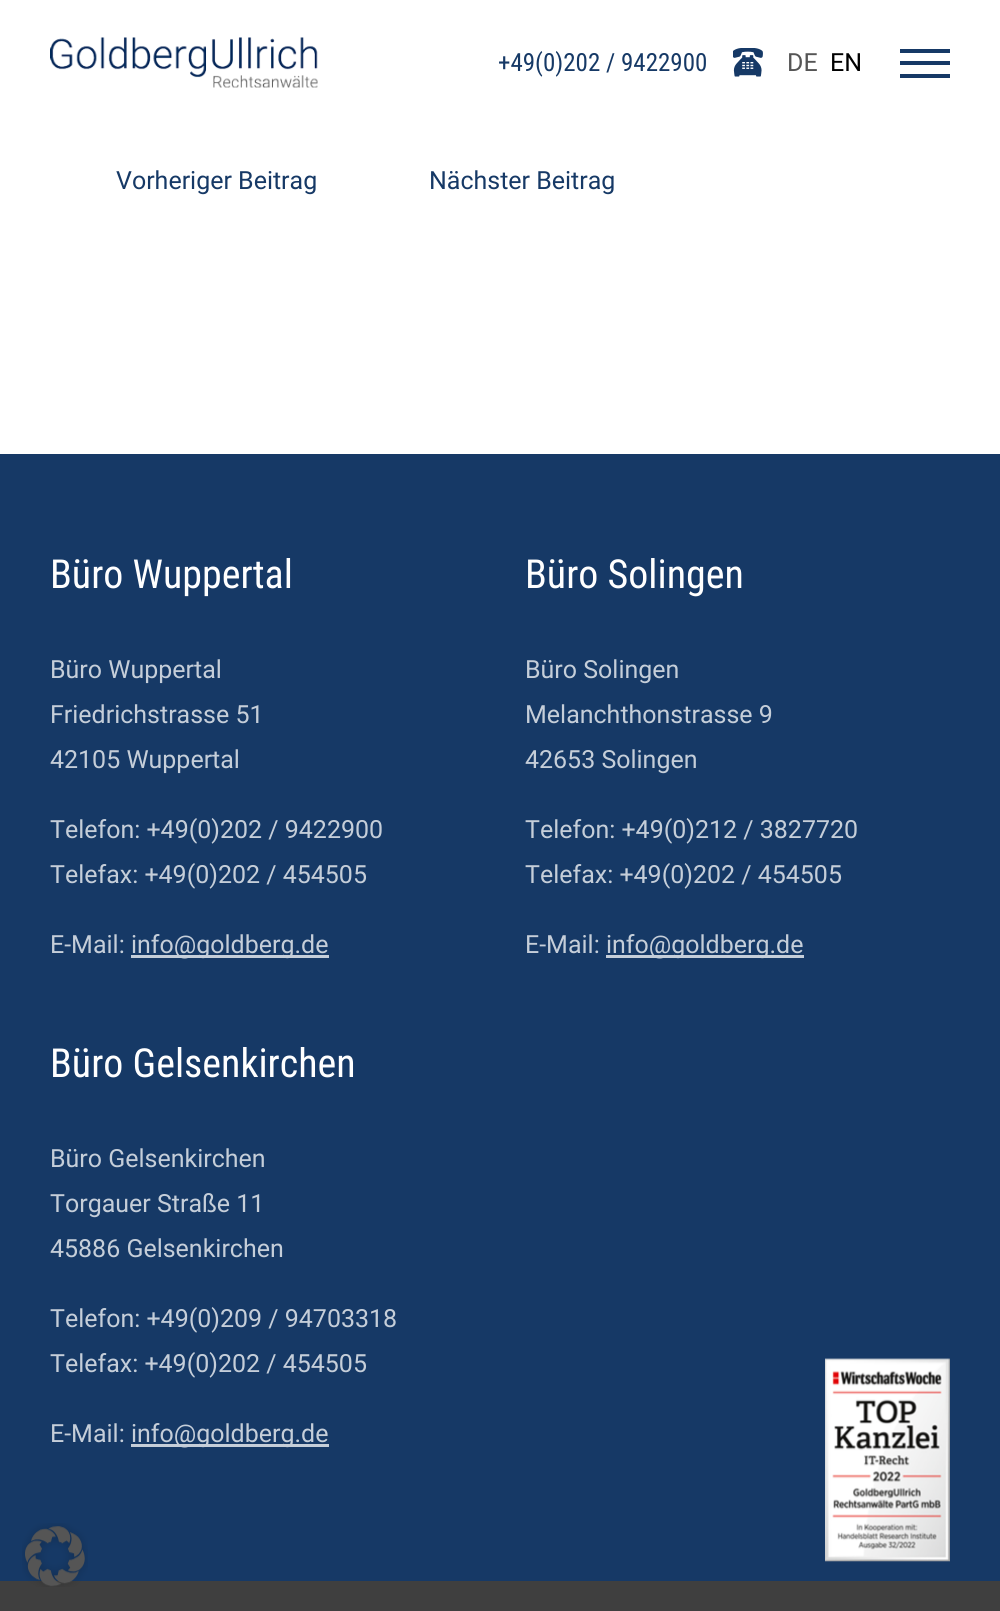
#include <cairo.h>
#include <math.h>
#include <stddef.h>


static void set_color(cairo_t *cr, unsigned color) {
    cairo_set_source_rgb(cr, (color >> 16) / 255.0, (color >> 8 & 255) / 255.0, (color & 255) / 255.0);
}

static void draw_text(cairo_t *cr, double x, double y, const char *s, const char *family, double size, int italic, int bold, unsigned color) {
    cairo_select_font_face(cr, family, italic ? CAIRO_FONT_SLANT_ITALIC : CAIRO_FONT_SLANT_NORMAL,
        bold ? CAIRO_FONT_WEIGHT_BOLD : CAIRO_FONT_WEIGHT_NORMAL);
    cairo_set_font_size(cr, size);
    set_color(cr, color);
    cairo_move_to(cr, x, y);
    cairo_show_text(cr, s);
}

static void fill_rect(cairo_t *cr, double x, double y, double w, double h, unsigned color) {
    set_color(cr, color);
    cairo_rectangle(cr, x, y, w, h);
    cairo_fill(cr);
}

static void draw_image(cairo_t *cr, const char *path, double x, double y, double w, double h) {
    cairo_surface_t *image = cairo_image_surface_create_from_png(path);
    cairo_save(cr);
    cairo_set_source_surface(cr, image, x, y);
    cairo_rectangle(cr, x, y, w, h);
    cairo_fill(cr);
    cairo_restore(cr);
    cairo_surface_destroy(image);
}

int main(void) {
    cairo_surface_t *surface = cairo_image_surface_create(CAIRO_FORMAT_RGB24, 1000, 1611);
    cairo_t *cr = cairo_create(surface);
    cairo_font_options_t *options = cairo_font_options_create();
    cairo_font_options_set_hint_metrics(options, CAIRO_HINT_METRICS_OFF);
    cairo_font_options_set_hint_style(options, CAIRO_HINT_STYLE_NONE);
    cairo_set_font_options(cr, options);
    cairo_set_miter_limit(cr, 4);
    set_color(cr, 0xFFFFFF);
    cairo_paint(cr);
    draw_image(cr, "assets/img1.png", 50, 37, 268, 51);
    draw_text(cr, 498, 71, "+49(0)202 / 9422900", "Roboto Condensed", 25, 0, 0, 0x163966);
    draw_image(cr, "assets/img2.png", 733, 48, 30, 29);
    draw_text(cr, 787, 71, "DE", "Roboto", 25, 0, 0, 0x555555);
    draw_text(cr, 830, 71, "EN", "Roboto", 25, 0, 0, 0x000000);
    fill_rect(cr, 900, 61, 50, 4, 0x163966);
    fill_rect(cr, 900, 49, 50, 4, 0x163966);
    fill_rect(cr, 900, 74, 50, 4, 0x163966);
    draw_text(cr, 116, 189, "Vorheriger Beitrag", "Roboto", 25, 0, 0, 0x163966);
    draw_text(cr, 429, 189, "Nächster Beitrag", "Roboto", 25, 0, 0, 0x163966);
    fill_rect(cr, 0, 454, 1000, 1127, 0x163966);
    draw_text(cr, 50, 588, "Büro Wuppertal", "Roboto Condensed", 40, 0, 0, 0xFFFFFF);
    draw_text(cr, 50, 678, "Büro Wuppertal", "Roboto", 25, 0, 0, 0xC5CED9);
    draw_text(cr, 50, 723, "Friedrichstrasse 51", "Roboto", 25, 0, 0, 0xC5CED9);
    draw_text(cr, 50, 768, "42105 Wuppertal", "Roboto", 25, 0, 0, 0xC5CED9);
    draw_text(cr, 50, 838, "Telefon: +49(0)202 / 9422900", "Roboto", 25, 0, 0, 0xC5CED9);
    draw_text(cr, 50, 883, "Telefax: +49(0)202 / 454505", "Roboto", 25, 0, 0, 0xC5CED9);
    draw_text(cr, 50, 953, "E-Mail:", "Roboto", 25, 0, 0, 0xC5CED9);
    fill_rect(cr, 131, 955, 198, 3, 0xC5CED9);
    draw_text(cr, 131, 953, "info@goldberg.de", "Roboto", 25, 0, 0, 0xC5CED9);
    draw_text(cr, 525, 588, "Büro Solingen", "Roboto Condensed", 40, 0, 0, 0xFFFFFF);
    draw_text(cr, 525, 678, "Büro Solingen", "Roboto", 25, 0, 0, 0xC5CED9);
    draw_text(cr, 525, 723, "Melanchthonstrasse 9", "Roboto", 25, 0, 0, 0xC5CED9);
    draw_text(cr, 525, 768, "42653 Solingen", "Roboto", 25, 0, 0, 0xC5CED9);
    draw_text(cr, 525, 838, "Telefon: +49(0)212 / 3827720", "Roboto", 25, 0, 0, 0xC5CED9);
    draw_text(cr, 525, 883, "Telefax: +49(0)202 / 454505", "Roboto", 25, 0, 0, 0xC5CED9);
    draw_text(cr, 525, 953, "E-Mail:", "Roboto", 25, 0, 0, 0xC5CED9);
    fill_rect(cr, 606, 955, 198, 3, 0xC5CED9);
    draw_text(cr, 606, 953, "info@goldberg.de", "Roboto", 25, 0, 0, 0xC5CED9);
    draw_text(cr, 50, 1077, "Büro Gelsenkirchen", "Roboto Condensed", 40, 0, 0, 0xFFFFFF);
    draw_text(cr, 50, 1167, "Büro Gelsenkirchen", "Roboto", 25, 0, 0, 0xC5CED9);
    draw_text(cr, 50, 1212, "Torgauer Straße 11", "Roboto", 25, 0, 0, 0xC5CED9);
    draw_text(cr, 50, 1257, "45886 Gelsenkirchen", "Roboto", 25, 0, 0, 0xC5CED9);
    draw_text(cr, 50, 1327, "Telefon: +49(0)209 / 94703318", "Roboto", 25, 0, 0, 0xC5CED9);
    draw_text(cr, 50, 1372, "Telefax: +49(0)202 / 454505", "Roboto", 25, 0, 0, 0xC5CED9);
    draw_text(cr, 50, 1442, "E-Mail:", "Roboto", 25, 0, 0, 0xC5CED9);
    fill_rect(cr, 131, 1444, 198, 3, 0xC5CED9);
    draw_text(cr, 131, 1442, "info@goldberg.de", "Roboto", 25, 0, 0, 0xC5CED9);
    fill_rect(cr, 0, 1581, 1000, 30, 0x3F3F3F);
    draw_image(cr, "assets/img3.png", 825, 1358, 125, 204);
    draw_image(cr, "assets/img4.png", 22, 1523, 66, 64);
    cairo_surface_write_to_png(surface, "output.png");
    cairo_font_options_destroy(options);
    cairo_destroy(cr);
    cairo_surface_destroy(surface);
    return 0;
}
